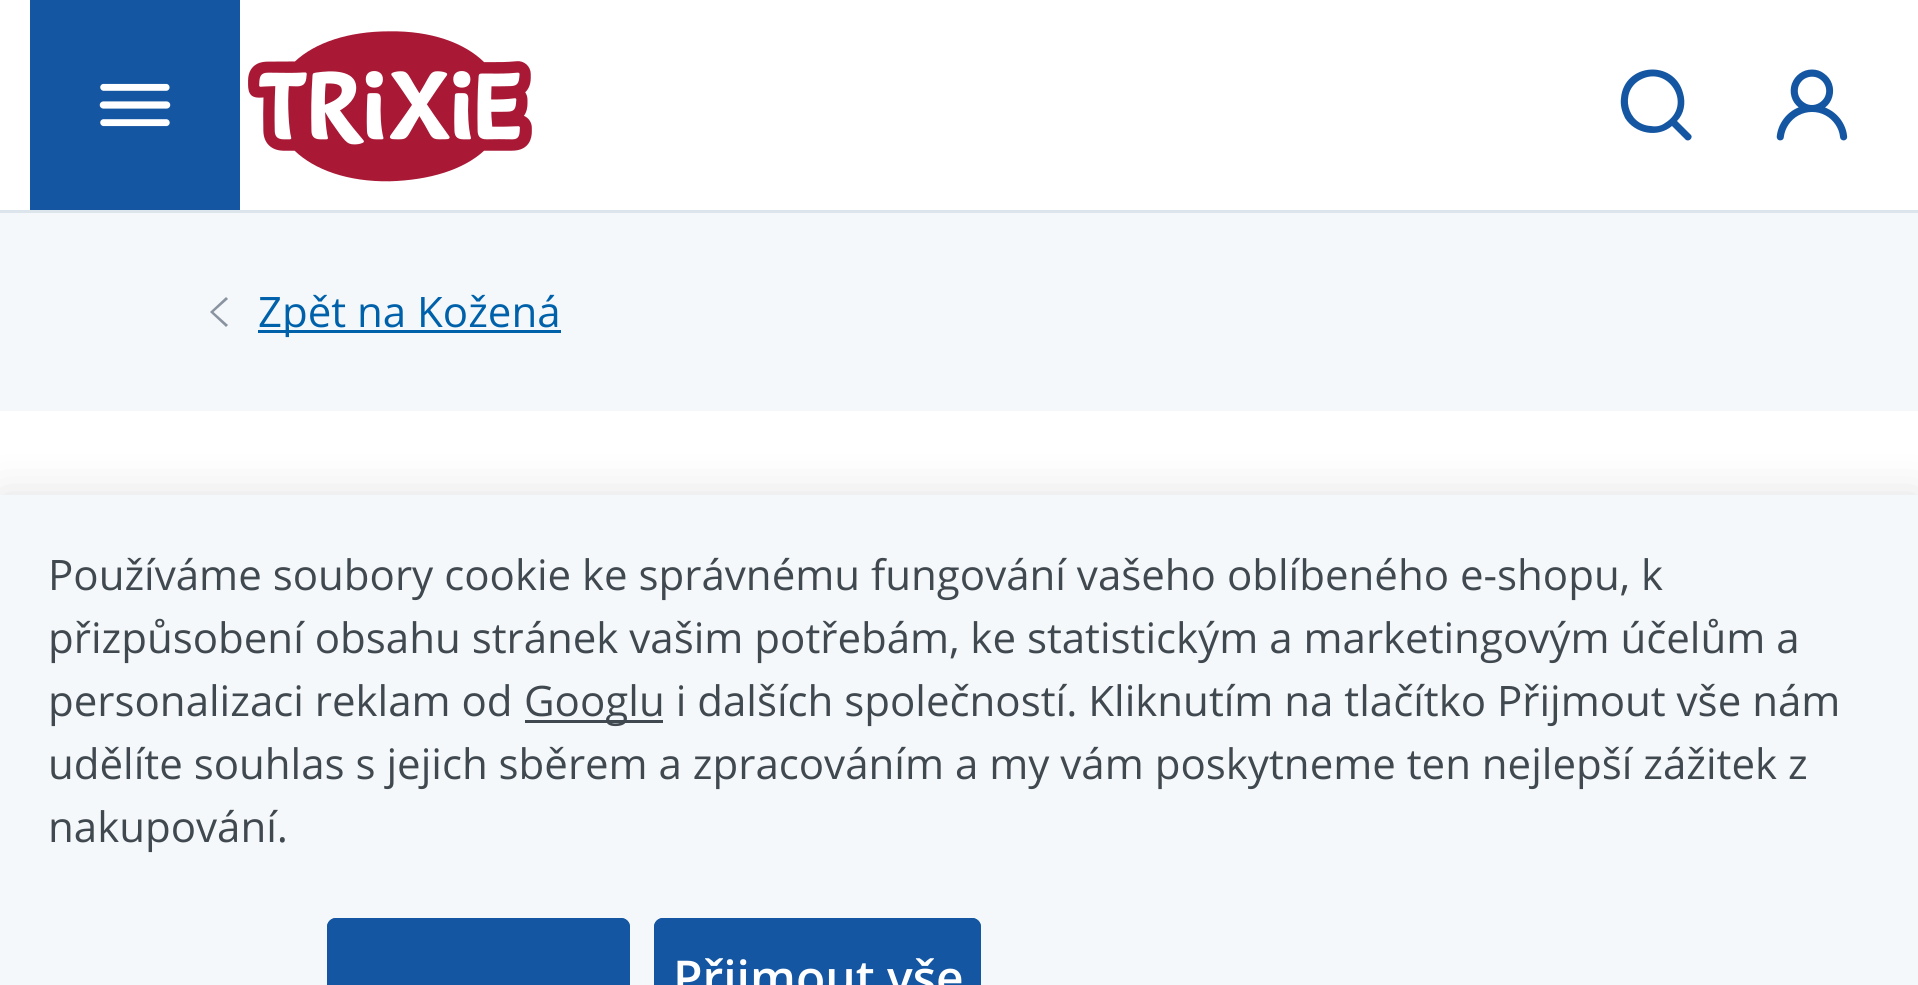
#include <cairo.h>
#include <math.h>
#include <stddef.h>


static void set_color(cairo_t *cr, unsigned color) {
    cairo_set_source_rgb(cr, (color >> 16) / 255.0, (color >> 8 & 255) / 255.0, (color & 255) / 255.0);
}

static void draw_text(cairo_t *cr, double x, double y, const char *s, const char *family, double size, int italic, int bold, unsigned color) {
    cairo_select_font_face(cr, family, italic ? CAIRO_FONT_SLANT_ITALIC : CAIRO_FONT_SLANT_NORMAL,
        bold ? CAIRO_FONT_WEIGHT_BOLD : CAIRO_FONT_WEIGHT_NORMAL);
    cairo_set_font_size(cr, size);
    set_color(cr, color);
    cairo_move_to(cr, x, y);
    cairo_show_text(cr, s);
}

static void fill_rect(cairo_t *cr, double x, double y, double w, double h, unsigned color) {
    set_color(cr, color);
    cairo_rectangle(cr, x, y, w, h);
    cairo_fill(cr);
}

static void rounded_rect(cairo_t *cr, double x, double y, double w, double h, double r) {
    cairo_new_sub_path(cr);
    cairo_arc(cr, x + w - r, y + h - r, r, 0, M_PI / 2);
    cairo_arc(cr, x + r, y + h - r, r, M_PI / 2, M_PI);
    cairo_arc(cr, x + r, y + r, r, M_PI, 1.5 * M_PI);
    cairo_arc(cr, x + w - r, y + r, r, 1.5 * M_PI, 2 * M_PI);
    cairo_close_path(cr);
}

static void draw_shadow(cairo_t *cr, double x, double y, double w, double h, double r, double blur, double alpha) {
    cairo_push_group_with_content(cr, CAIRO_CONTENT_ALPHA);
    cairo_set_operator(cr, CAIRO_OPERATOR_SOURCE);
    for (int i = 15; i >= -15 && fmin(w, h) + blur * i / 3 > 0; i -= 2) {
        double e = blur * i / 6;
        cairo_set_source_rgba(cr, 0, 0, 0, alpha * erfc((i - 1) / 8.5) / 2);
        rounded_rect(cr, x - e, y - e, w + 2 * e, h + 2 * e, fmax(0, fmin(r + e + blur * .6, fmin(w, h) / 2 + e)));
        cairo_fill(cr);
    }
    cairo_pattern_t *soft = cairo_pop_group(cr);
    cairo_mask(cr, soft);
    cairo_pattern_destroy(soft);
}

static void draw_image(cairo_t *cr, const char *path, double x, double y, double w, double h) {
    cairo_surface_t *image = cairo_image_surface_create_from_png(path);
    cairo_save(cr);
    cairo_set_source_surface(cr, image, x, y);
    cairo_rectangle(cr, x, y, w, h);
    cairo_fill(cr);
    cairo_restore(cr);
    cairo_surface_destroy(image);
}

int main(void) {
    cairo_surface_t *surface = cairo_image_surface_create(CAIRO_FORMAT_RGB24, 1918, 985);
    cairo_t *cr = cairo_create(surface);
    cairo_font_options_t *options = cairo_font_options_create();
    cairo_font_options_set_hint_metrics(options, CAIRO_HINT_METRICS_OFF);
    cairo_font_options_set_hint_style(options, CAIRO_HINT_STYLE_NONE);
    cairo_set_font_options(cr, options);
    cairo_set_miter_limit(cr, 4);
    set_color(cr, 0xFFFFFF);
    cairo_paint(cr);
    fill_rect(cr, 0, 210, 1918, 3, 0xDCE5EB);
    fill_rect(cr, 30, 0, 210, 210, 0x1556A2);
    draw_image(cr, "assets/img1.png", 99, 83, 72, 44);
    draw_image(cr, "assets/img2.png", 248, 31, 284, 151);
    cairo_new_path(cr);
    cairo_move_to(cr, 1691, 135);
    cairo_line_to(cr, 1677, 121);
    cairo_curve_to(cr, 1684, 114, 1686, 103, 1683, 93);
    cairo_curve_to(cr, 1674, 59, 1624, 63, 1621, 98);
    cairo_curve_to(cr, 1620, 105, 1622, 112, 1625, 118);
    cairo_curve_to(cr, 1635, 134, 1658, 138, 1672, 126);
    cairo_line_to(cr, 1686, 140);
    cairo_curve_to(cr, 1690, 142, 1693, 137, 1691, 135);
    cairo_close_path(cr);
    cairo_move_to(cr, 1665, 123);
    cairo_curve_to(cr, 1661, 126, 1656, 127, 1651, 126);
    cairo_curve_to(cr, 1627, 125, 1619, 92, 1640, 80);
    cairo_curve_to(cr, 1668, 64, 1694, 105, 1665, 123);
    cairo_close_path(cr);
    cairo_fill(cr);
    draw_image(cr, "assets/img3.png", 1776, 69, 72, 72);
    fill_rect(cr, 0, 213, 1918, 198, 0xF5F8FA);
    set_color(cr, 0x8994A0);
    cairo_new_path(cr);
    cairo_move_to(cr, 228, 299);
    cairo_line_to(cr, 213.5, 312);
    cairo_line_to(cr, 228, 325);
    cairo_line_to(cr, 226, 327);
    cairo_line_to(cr, 210, 312);
    cairo_line_to(cr, 226, 297);
    cairo_close_path(cr);
    cairo_fill(cr);
    fill_rect(cr, 258, 330, 303, 3, 0x0061AB);
    draw_text(cr, 258, 327, "Zpět na Kožená", "Open Sans", 42, 0, 0, 0x0061AB);
    set_color(cr, 0x373737);
    draw_shadow(cr, 0, 495, 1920, 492, 0, 22.5, 0.15);
    fill_rect(cr, 0, 495, 1918, 490, 0xF5F8FA);
    draw_text(cr, 48, 590, "Používáme soubory cookie ke správnému fungování vašeho oblíbeného e-shopu, k", "Open Sans", 42, 0, 0, 0x414950);
    draw_text(cr, 48, 653, "přizpůsobení obsahu stránek vašim potřebám, ke statistickým a marketingovým účelům a", "Open Sans", 42, 0, 0, 0x414950);
    draw_text(cr, 48, 716, "personalizaci reklam od", "Open Sans", 42, 0, 0, 0x414950);
    fill_rect(cr, 525, 720, 138, 3, 0x414950);
    draw_text(cr, 524, 716, "Googlu i dalších společností. Kliknutím na tlačítko Přijmout vše nám", "Open Sans", 42, 0, 0, 0x414950);
    draw_text(cr, 48, 779, "udělíte souhlas s jejich sběrem a zpracováním a my vám poskytneme ten nejlepší zážitek z", "Open Sans", 42, 0, 0, 0x414950);
    draw_text(cr, 48, 842, "nakupování.", "Open Sans", 42, 0, 0, 0x414950);
    set_color(cr, 0x1556A2);
    cairo_new_path(cr);
    cairo_move_to(cr, 336, 918);
    cairo_line_to(cr, 621, 918);
    cairo_curve_to(cr, 626, 918, 630, 922, 630, 927);
    cairo_line_to(cr, 630, 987);
    cairo_line_to(cr, 327, 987);
    cairo_line_to(cr, 327, 927);
    cairo_curve_to(cr, 327, 922, 331, 918, 336, 918);
    cairo_close_path(cr);
    cairo_fill(cr);
    rounded_rect(cr, 328.5, 919.5, 300, 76, 7.5);
    cairo_set_line_width(cr, 3);
    cairo_stroke(cr);
    cairo_new_path(cr);
    cairo_move_to(cr, 663, 918);
    cairo_line_to(cr, 972, 918);
    cairo_curve_to(cr, 977, 918, 981, 922, 981, 927);
    cairo_line_to(cr, 981, 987);
    cairo_line_to(cr, 654, 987);
    cairo_line_to(cr, 654, 927);
    cairo_curve_to(cr, 654, 922, 658, 918, 663, 918);
    cairo_close_path(cr);
    cairo_fill(cr);
    rounded_rect(cr, 655.5, 919.5, 324, 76, 7.5);
    cairo_stroke(cr);
    draw_text(cr, 673, 995, "Přijmout vše", "Open Sans SemiBold", 48, 0, 0, 0xFFFFFF);
    cairo_surface_write_to_png(surface, "output.png");
    cairo_font_options_destroy(options);
    cairo_destroy(cr);
    cairo_surface_destroy(surface);
    return 0;
}
